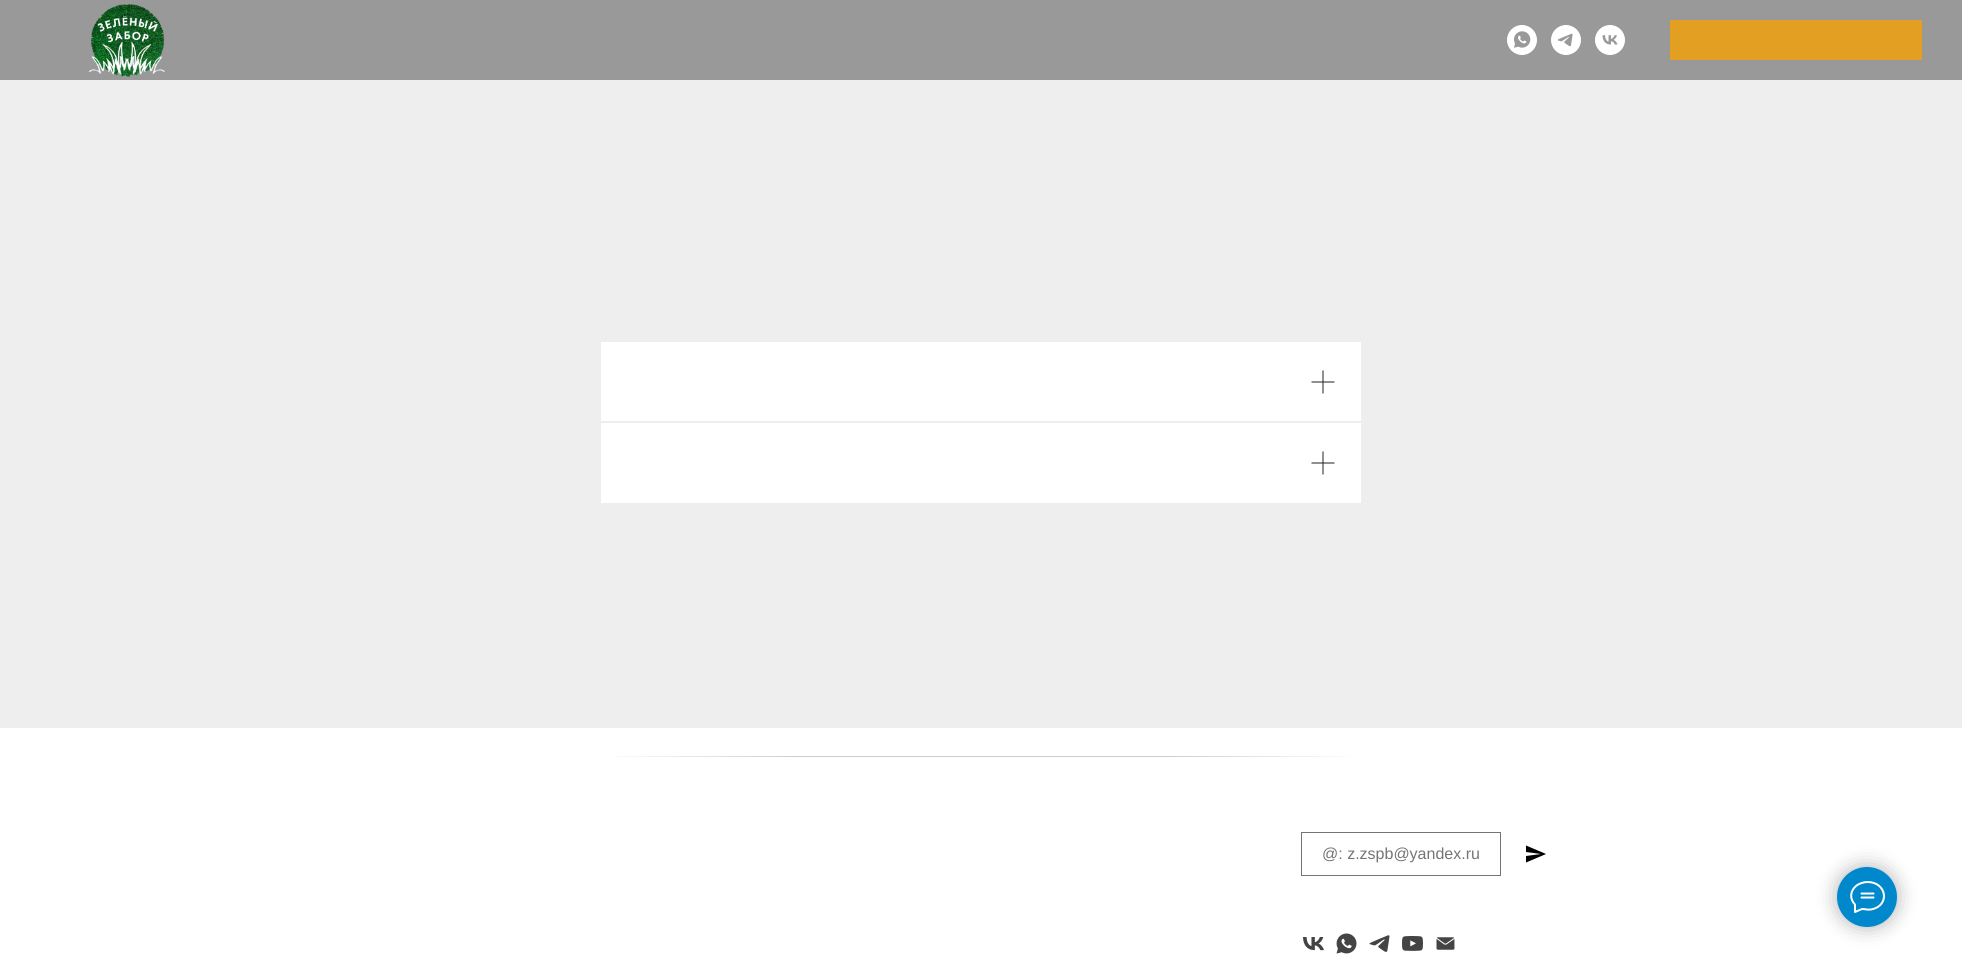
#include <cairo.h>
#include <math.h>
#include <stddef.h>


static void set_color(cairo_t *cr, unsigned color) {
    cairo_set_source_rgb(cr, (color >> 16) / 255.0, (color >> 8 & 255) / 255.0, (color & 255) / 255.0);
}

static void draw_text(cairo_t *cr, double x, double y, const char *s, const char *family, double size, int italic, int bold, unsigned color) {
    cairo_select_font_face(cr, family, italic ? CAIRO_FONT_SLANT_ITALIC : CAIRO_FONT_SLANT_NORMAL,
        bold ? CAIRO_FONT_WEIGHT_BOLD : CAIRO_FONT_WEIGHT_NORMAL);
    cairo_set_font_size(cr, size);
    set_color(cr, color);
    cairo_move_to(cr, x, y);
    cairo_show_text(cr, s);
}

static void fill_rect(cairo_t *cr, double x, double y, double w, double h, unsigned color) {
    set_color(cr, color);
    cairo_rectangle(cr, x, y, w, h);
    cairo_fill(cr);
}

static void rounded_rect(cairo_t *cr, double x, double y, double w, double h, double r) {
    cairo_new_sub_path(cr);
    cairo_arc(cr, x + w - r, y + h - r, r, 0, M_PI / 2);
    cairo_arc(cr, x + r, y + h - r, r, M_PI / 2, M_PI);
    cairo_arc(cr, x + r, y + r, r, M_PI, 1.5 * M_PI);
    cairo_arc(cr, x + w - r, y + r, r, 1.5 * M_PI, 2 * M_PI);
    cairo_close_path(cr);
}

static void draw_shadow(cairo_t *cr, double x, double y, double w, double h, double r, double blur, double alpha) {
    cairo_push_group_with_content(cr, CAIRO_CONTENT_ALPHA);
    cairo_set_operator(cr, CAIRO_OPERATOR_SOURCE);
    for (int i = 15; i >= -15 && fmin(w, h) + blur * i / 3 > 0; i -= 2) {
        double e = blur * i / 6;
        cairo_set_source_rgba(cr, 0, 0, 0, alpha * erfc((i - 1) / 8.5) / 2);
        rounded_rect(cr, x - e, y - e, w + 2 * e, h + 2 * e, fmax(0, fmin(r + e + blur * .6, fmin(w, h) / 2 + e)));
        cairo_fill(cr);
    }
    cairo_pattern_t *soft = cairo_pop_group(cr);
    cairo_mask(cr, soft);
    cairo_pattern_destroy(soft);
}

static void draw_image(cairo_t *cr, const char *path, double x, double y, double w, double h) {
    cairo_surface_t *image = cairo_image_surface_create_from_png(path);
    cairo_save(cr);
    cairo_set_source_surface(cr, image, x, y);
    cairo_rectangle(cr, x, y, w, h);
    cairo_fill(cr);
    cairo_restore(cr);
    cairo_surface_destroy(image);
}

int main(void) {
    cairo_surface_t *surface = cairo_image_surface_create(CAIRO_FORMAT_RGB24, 1962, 977);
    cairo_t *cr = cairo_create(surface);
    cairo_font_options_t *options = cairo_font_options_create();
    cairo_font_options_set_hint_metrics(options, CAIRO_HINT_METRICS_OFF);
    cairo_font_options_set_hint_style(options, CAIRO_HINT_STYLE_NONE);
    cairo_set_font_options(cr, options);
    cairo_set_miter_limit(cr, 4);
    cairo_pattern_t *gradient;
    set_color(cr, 0xFFFFFF);
    cairo_paint(cr);
    fill_rect(cr, 0, 0, 1962, 80, 0x999999);
    draw_image(cr, "assets/img1.png", 88, 4, 77, 73);
    draw_image(cr, "assets/img2.png", 1507, 25, 30, 30);
    draw_image(cr, "assets/img3.png", 1551, 25, 30, 30);
    draw_image(cr, "assets/img4.png", 1595, 25, 30, 30);
    fill_rect(cr, 1670, 20, 252, 40, 0xE39F21);
    set_color(cr, 0x000000);
    draw_shadow(cr, 1837, 867, 60, 60, 30, 10, 0.3);
    set_color(cr, 0x0088CC);
    cairo_arc(cr, 1867, 897, 30, 0, 2 * M_PI);
    cairo_fill(cr);
    cairo_new_path(cr);
    cairo_move_to(cr, 1861.5, 893.5);
    cairo_line_to(cr, 1873.5, 893.5);
    cairo_move_to(cr, 1861.5, 897.5);
    cairo_line_to(cr, 1873.5, 897.5);
    cairo_move_to(cr, 1855, 904.5);
    cairo_curve_to(cr, 1849.5, 899, 1850, 891, 1856, 886);
    cairo_curve_to(cr, 1859, 883.5, 1863.5, 882, 1867.5, 882);
    cairo_curve_to(cr, 1887, 882, 1890.5, 906, 1871, 909.5);
    cairo_curve_to(cr, 1867, 910, 1865.5, 909, 1862, 909);
    cairo_line_to(cr, 1855, 912);
    cairo_line_to(cr, 1855, 905);
    cairo_close_path(cr);
    set_color(cr, 0xFFFFFF);
    cairo_set_line_cap(cr, CAIRO_LINE_CAP_ROUND);
    cairo_set_line_join(cr, CAIRO_LINE_JOIN_ROUND);
    cairo_stroke(cr);
    fill_rect(cr, 0, 80, 1962, 648, 0xEEEEEE);
    fill_rect(cr, 601, 342, 760, 79, 0xFFFFFF);
    cairo_new_path(cr);
    cairo_move_to(cr, 1312, 382);
    cairo_line_to(cr, 1334, 382);
    cairo_move_to(cr, 1323, 371);
    cairo_line_to(cr, 1323, 393);
    set_color(cr, 0x222222);
    cairo_set_line_width(cr, 1);
    cairo_set_line_cap(cr, CAIRO_LINE_CAP_SQUARE);
    cairo_set_line_join(cr, CAIRO_LINE_JOIN_MITER);
    cairo_stroke(cr);
    fill_rect(cr, 601, 423, 760, 80, 0xFFFFFF);
    cairo_new_path(cr);
    cairo_move_to(cr, 1312, 463);
    cairo_line_to(cr, 1334, 463);
    cairo_move_to(cr, 1323, 452);
    cairo_line_to(cr, 1323, 474);
    set_color(cr, 0x222222);
    cairo_stroke(cr);
    gradient = cairo_pattern_create_linear(801, 757, 601, 757);
    cairo_pattern_add_color_stop_rgba(gradient, 0, 0.8, 0.8, 0.8, 1);
    cairo_pattern_add_color_stop_rgba(gradient, 1, 1, 1, 1, 1);
    cairo_set_source(cr, gradient);
    cairo_pattern_destroy(gradient);
    cairo_rectangle(cr, 611, 756, 190, 1);
    cairo_fill(cr);
    fill_rect(cr, 801, 756, 360, 1, 0xCCCCCC);
    gradient = cairo_pattern_create_linear(1161, 757, 1361, 757);
    cairo_pattern_add_color_stop_rgba(gradient, 0, 0.8, 0.8, 0.8, 1);
    cairo_pattern_add_color_stop_rgba(gradient, 1, 1, 1, 1, 1);
    cairo_set_source(cr, gradient);
    cairo_pattern_destroy(gradient);
    cairo_rectangle(cr, 1161, 756, 190, 1);
    cairo_fill(cr);
    cairo_rectangle(cr, 1301.5, 832.5, 199, 43);
    set_color(cr, 0x747474);
    cairo_set_line_cap(cr, CAIRO_LINE_CAP_BUTT);
    cairo_stroke(cr);
    draw_text(cr, 1322, 859, "@: z.zspb@yandex.ru", "Liberation Sans", 16, 0, 0, 0x757575);
    set_color(cr, 0x000000);
    cairo_new_path(cr);
    cairo_move_to(cr, 1526, 862.5);
    cairo_line_to(cr, 1546, 854);
    cairo_line_to(cr, 1526, 845.5);
    cairo_line_to(cr, 1526, 852);
    cairo_line_to(cr, 1540.5, 854);
    cairo_line_to(cr, 1526, 856);
    cairo_close_path(cr);
    cairo_fill(cr);
    draw_image(cr, "assets/img5.png", 1303, 937, 21, 14);
    draw_image(cr, "assets/img6.png", 1336, 933, 21, 21);
    draw_image(cr, "assets/img7.png", 1369, 935, 21, 17);
    draw_image(cr, "assets/img8.png", 1402, 936, 21, 15);
    draw_image(cr, "assets/img9.png", 1436, 937, 19, 13);
    cairo_surface_write_to_png(surface, "output.png");
    cairo_font_options_destroy(options);
    cairo_destroy(cr);
    cairo_surface_destroy(surface);
    return 0;
}
